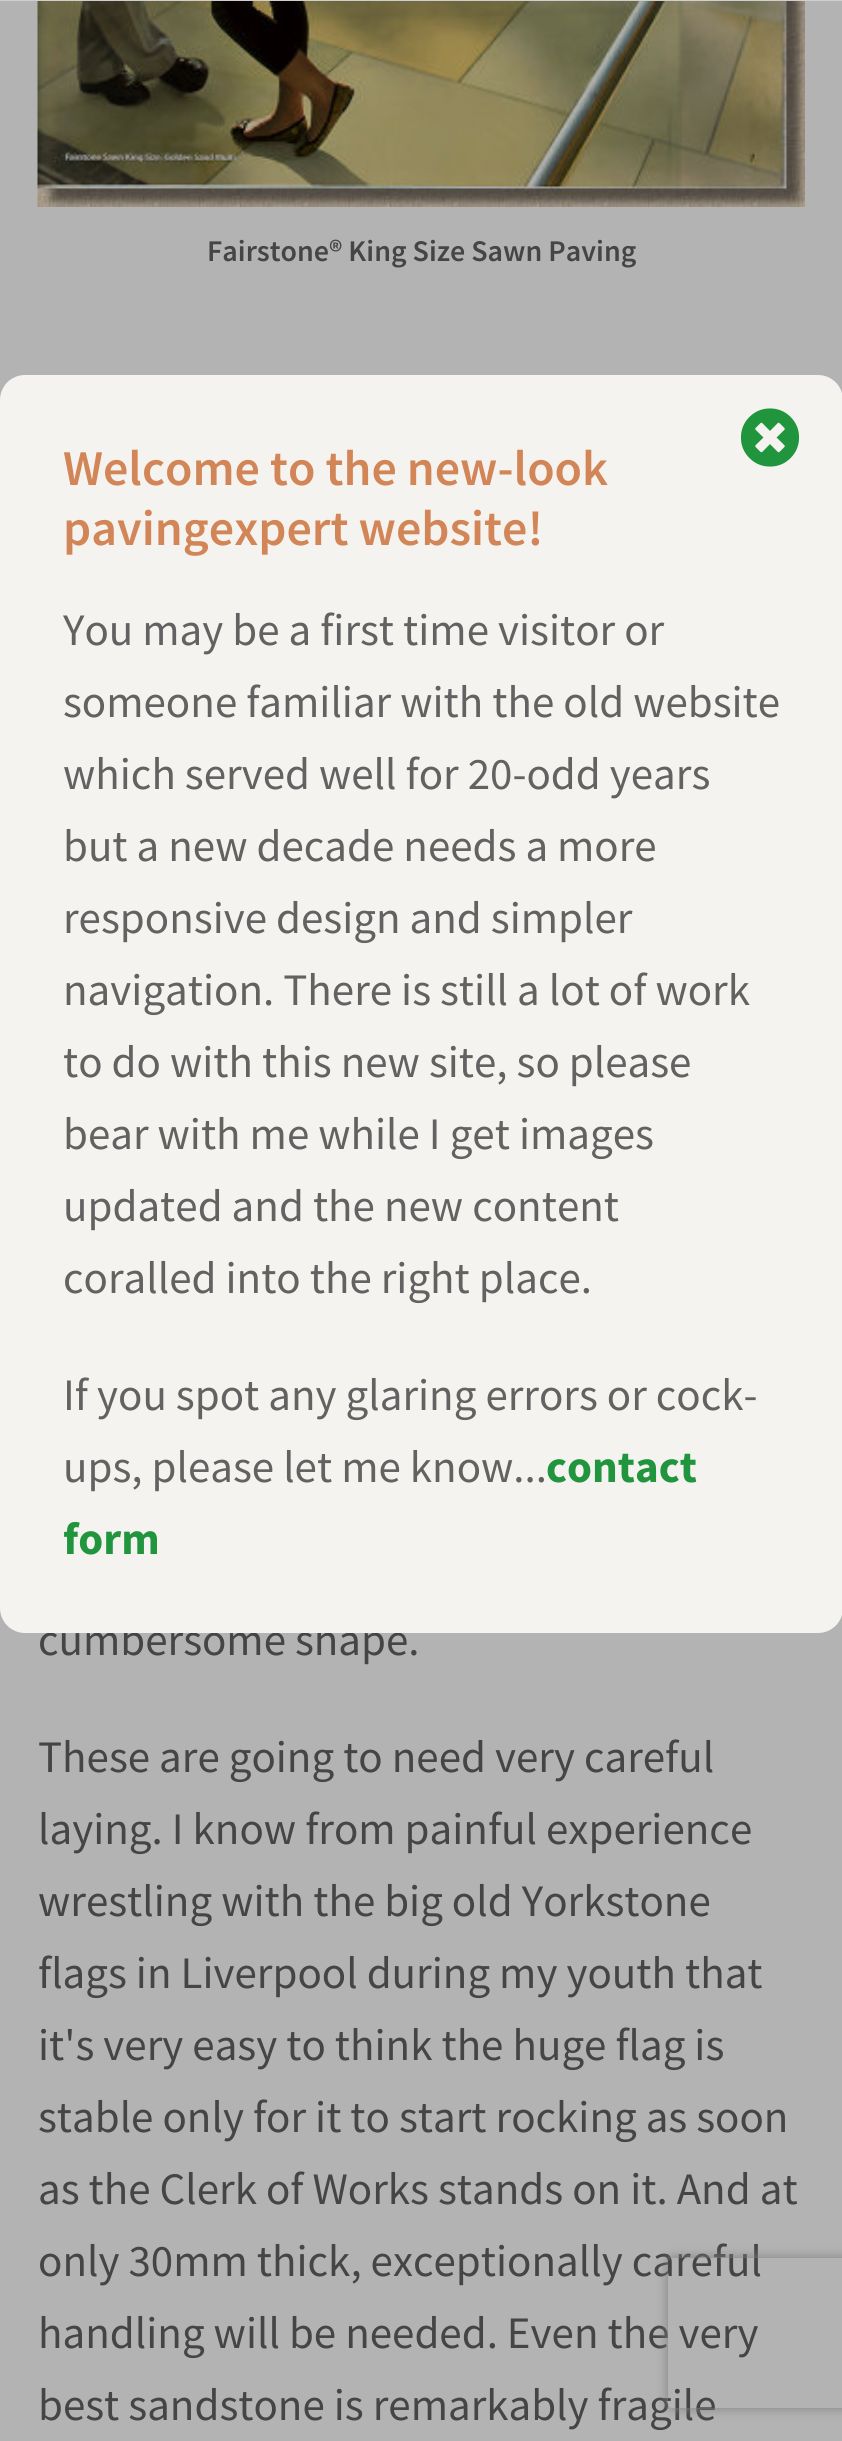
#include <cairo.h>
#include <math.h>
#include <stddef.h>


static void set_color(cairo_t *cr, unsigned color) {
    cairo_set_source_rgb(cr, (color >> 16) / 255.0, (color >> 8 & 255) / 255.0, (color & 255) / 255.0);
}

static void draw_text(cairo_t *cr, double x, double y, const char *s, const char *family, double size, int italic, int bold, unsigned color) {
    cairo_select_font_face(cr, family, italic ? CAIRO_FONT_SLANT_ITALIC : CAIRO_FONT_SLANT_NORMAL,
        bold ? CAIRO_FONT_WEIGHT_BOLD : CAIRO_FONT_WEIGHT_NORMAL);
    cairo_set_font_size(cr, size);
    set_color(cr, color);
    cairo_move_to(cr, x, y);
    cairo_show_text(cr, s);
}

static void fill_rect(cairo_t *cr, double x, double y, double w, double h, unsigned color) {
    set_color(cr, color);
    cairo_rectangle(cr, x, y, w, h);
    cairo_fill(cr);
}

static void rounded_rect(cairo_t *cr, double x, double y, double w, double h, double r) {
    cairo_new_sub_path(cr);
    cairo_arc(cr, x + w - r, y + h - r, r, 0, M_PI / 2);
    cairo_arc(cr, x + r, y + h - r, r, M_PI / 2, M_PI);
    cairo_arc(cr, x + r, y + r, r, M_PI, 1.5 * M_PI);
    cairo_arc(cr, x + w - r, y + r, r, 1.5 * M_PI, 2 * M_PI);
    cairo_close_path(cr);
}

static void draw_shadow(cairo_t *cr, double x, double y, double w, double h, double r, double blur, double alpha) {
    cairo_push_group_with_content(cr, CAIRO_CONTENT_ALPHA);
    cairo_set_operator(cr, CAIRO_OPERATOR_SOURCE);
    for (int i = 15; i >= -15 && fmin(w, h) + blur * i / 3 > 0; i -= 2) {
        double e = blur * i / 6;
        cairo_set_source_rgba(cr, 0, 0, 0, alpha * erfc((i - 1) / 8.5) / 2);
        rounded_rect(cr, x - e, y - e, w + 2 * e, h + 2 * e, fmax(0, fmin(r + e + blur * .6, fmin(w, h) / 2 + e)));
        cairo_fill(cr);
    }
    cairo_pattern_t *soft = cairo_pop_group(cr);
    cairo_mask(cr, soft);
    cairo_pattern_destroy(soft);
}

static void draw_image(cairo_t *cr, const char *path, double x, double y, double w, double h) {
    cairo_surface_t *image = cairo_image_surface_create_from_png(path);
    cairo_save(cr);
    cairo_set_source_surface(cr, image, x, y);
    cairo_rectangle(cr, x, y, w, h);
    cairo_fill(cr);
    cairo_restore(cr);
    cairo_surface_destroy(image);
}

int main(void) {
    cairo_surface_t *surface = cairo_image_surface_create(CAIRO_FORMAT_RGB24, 842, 2441);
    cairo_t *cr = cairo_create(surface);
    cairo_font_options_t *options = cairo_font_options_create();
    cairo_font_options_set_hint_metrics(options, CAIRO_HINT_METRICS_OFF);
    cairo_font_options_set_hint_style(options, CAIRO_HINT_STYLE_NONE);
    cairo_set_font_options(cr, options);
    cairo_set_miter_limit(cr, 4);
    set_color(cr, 0xB3B3B3);
    cairo_paint(cr);
    fill_rect(cr, 0, 0, 842, 1, 0xCFCFCF);
    draw_image(cr, "assets/img1.png", 37, 1, 768, 206);
    draw_text(cr, 207, 261, "Fairstone® King Size Sawn Paving", "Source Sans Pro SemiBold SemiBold", 30, 0, 0, 0x454545);
    draw_text(cr, 38, 1655, "cumbersome shape.", "Source Sans Pro", 45, 0, 0, 0x454545);
    draw_text(cr, 38, 1772, "These are going to need very careful", "Source Sans Pro", 45, 0, 0, 0x454545);
    draw_text(cr, 38, 1844, "laying. I know from painful experience", "Source Sans Pro", 45, 0, 0, 0x454545);
    draw_text(cr, 38, 1916, "wrestling with the big old Yorkstone", "Source Sans Pro", 45, 0, 0, 0x454545);
    draw_text(cr, 38, 1988, "flags in Liverpool during my youth that", "Source Sans Pro", 45, 0, 0, 0x454545);
    draw_text(cr, 38, 2060, "it's very easy to think the huge flag is", "Source Sans Pro", 45, 0, 0, 0x454545);
    draw_text(cr, 38, 2132, "stable only for it to start rocking as soon", "Source Sans Pro", 45, 0, 0, 0x454545);
    draw_text(cr, 38, 2204, "as the Clerk of Works stands on it. And at", "Source Sans Pro", 45, 0, 0, 0x454545);
    draw_text(cr, 38, 2276, "only 30mm thick, exceptionally careful", "Source Sans Pro", 45, 0, 0, 0x454545);
    draw_text(cr, 38, 2348, "handling will be needed. Even the very", "Source Sans Pro", 45, 0, 0, 0x454545);
    draw_text(cr, 38, 2420, "best sandstone is remarkably fragile", "Source Sans Pro", 45, 0, 0, 0x454545);
    set_color(cr, 0xF5F3EF);
    rounded_rect(cr, 0, 375, 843, 1258, 25);
    cairo_fill(cr);
    draw_image(cr, "assets/img2.png", 740, 408, 60, 59);
    draw_text(cr, 63, 485, "Welcome to the new-look", "Source Sans Pro SemiBold SemiBold", 50, 0, 0, 0xD28657);
    draw_text(cr, 63, 545, "pavingexpert website!", "Source Sans Pro SemiBold SemiBold", 50, 0, 0, 0xD28657);
    draw_text(cr, 63, 645, "You may be a first time visitor or", "Source Sans Pro", 45, 0, 0, 0x626262);
    draw_text(cr, 63, 717, "someone familiar with the old website", "Source Sans Pro", 45, 0, 0, 0x626262);
    draw_text(cr, 63, 789, "which served well for 20-odd years", "Source Sans Pro", 45, 0, 0, 0x626262);
    draw_text(cr, 63, 861, "but a new decade needs a more", "Source Sans Pro", 45, 0, 0, 0x626262);
    draw_text(cr, 63, 933, "responsive design and simpler", "Source Sans Pro", 45, 0, 0, 0x626262);
    draw_text(cr, 63, 1005, "navigation. There is still a lot of work", "Source Sans Pro", 45, 0, 0, 0x626262);
    draw_text(cr, 63, 1077, "to do with this new site, so please", "Source Sans Pro", 45, 0, 0, 0x626262);
    draw_text(cr, 63, 1149, "bear with me while I get images", "Source Sans Pro", 45, 0, 0, 0x626262);
    draw_text(cr, 63, 1221, "updated and the new content", "Source Sans Pro", 45, 0, 0, 0x626262);
    draw_text(cr, 63, 1293, "coralled into the right place.", "Source Sans Pro", 45, 0, 0, 0x626262);
    draw_text(cr, 63, 1410, "If you spot any glaring errors or cock-", "Source Sans Pro", 45, 0, 0, 0x626262);
    draw_text(cr, 63, 1482, "ups, please let me know...", "Source Sans Pro", 45, 0, 0, 0x626262);
    draw_text(cr, 546, 1482, "contact", "Source Sans Pro", 45, 0, 1, 0x20953E);
    draw_text(cr, 63, 1554, "form", "Source Sans Pro", 45, 0, 1, 0x20953E);
    cairo_save(cr);
    cairo_set_fill_rule(cr, CAIRO_FILL_RULE_EVEN_ODD);
    cairo_new_path(cr);
    cairo_move_to(cr, 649, 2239);
    cairo_line_to(cr, 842, 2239);
    cairo_line_to(cr, 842, 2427);
    cairo_line_to(cr, 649, 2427);
    cairo_close_path(cr);
    cairo_move_to(cr, 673, 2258);
    cairo_line_to(cr, 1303, 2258);
    cairo_curve_to(cr, 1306, 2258, 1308, 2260, 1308, 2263);
    cairo_line_to(cr, 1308, 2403);
    cairo_curve_to(cr, 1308, 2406, 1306, 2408, 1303, 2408);
    cairo_line_to(cr, 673, 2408);
    cairo_curve_to(cr, 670, 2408, 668, 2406, 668, 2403);
    cairo_line_to(cr, 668, 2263);
    cairo_curve_to(cr, 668, 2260, 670, 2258, 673, 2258);
    cairo_close_path(cr);
    cairo_clip(cr);
    set_color(cr, 0x808080);
    draw_shadow(cr, 668, 2258, 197, 150, 5, 6, 1);
    cairo_restore(cr);
    cairo_surface_write_to_png(surface, "output.png");
    cairo_font_options_destroy(options);
    cairo_destroy(cr);
    cairo_surface_destroy(surface);
    return 0;
}
